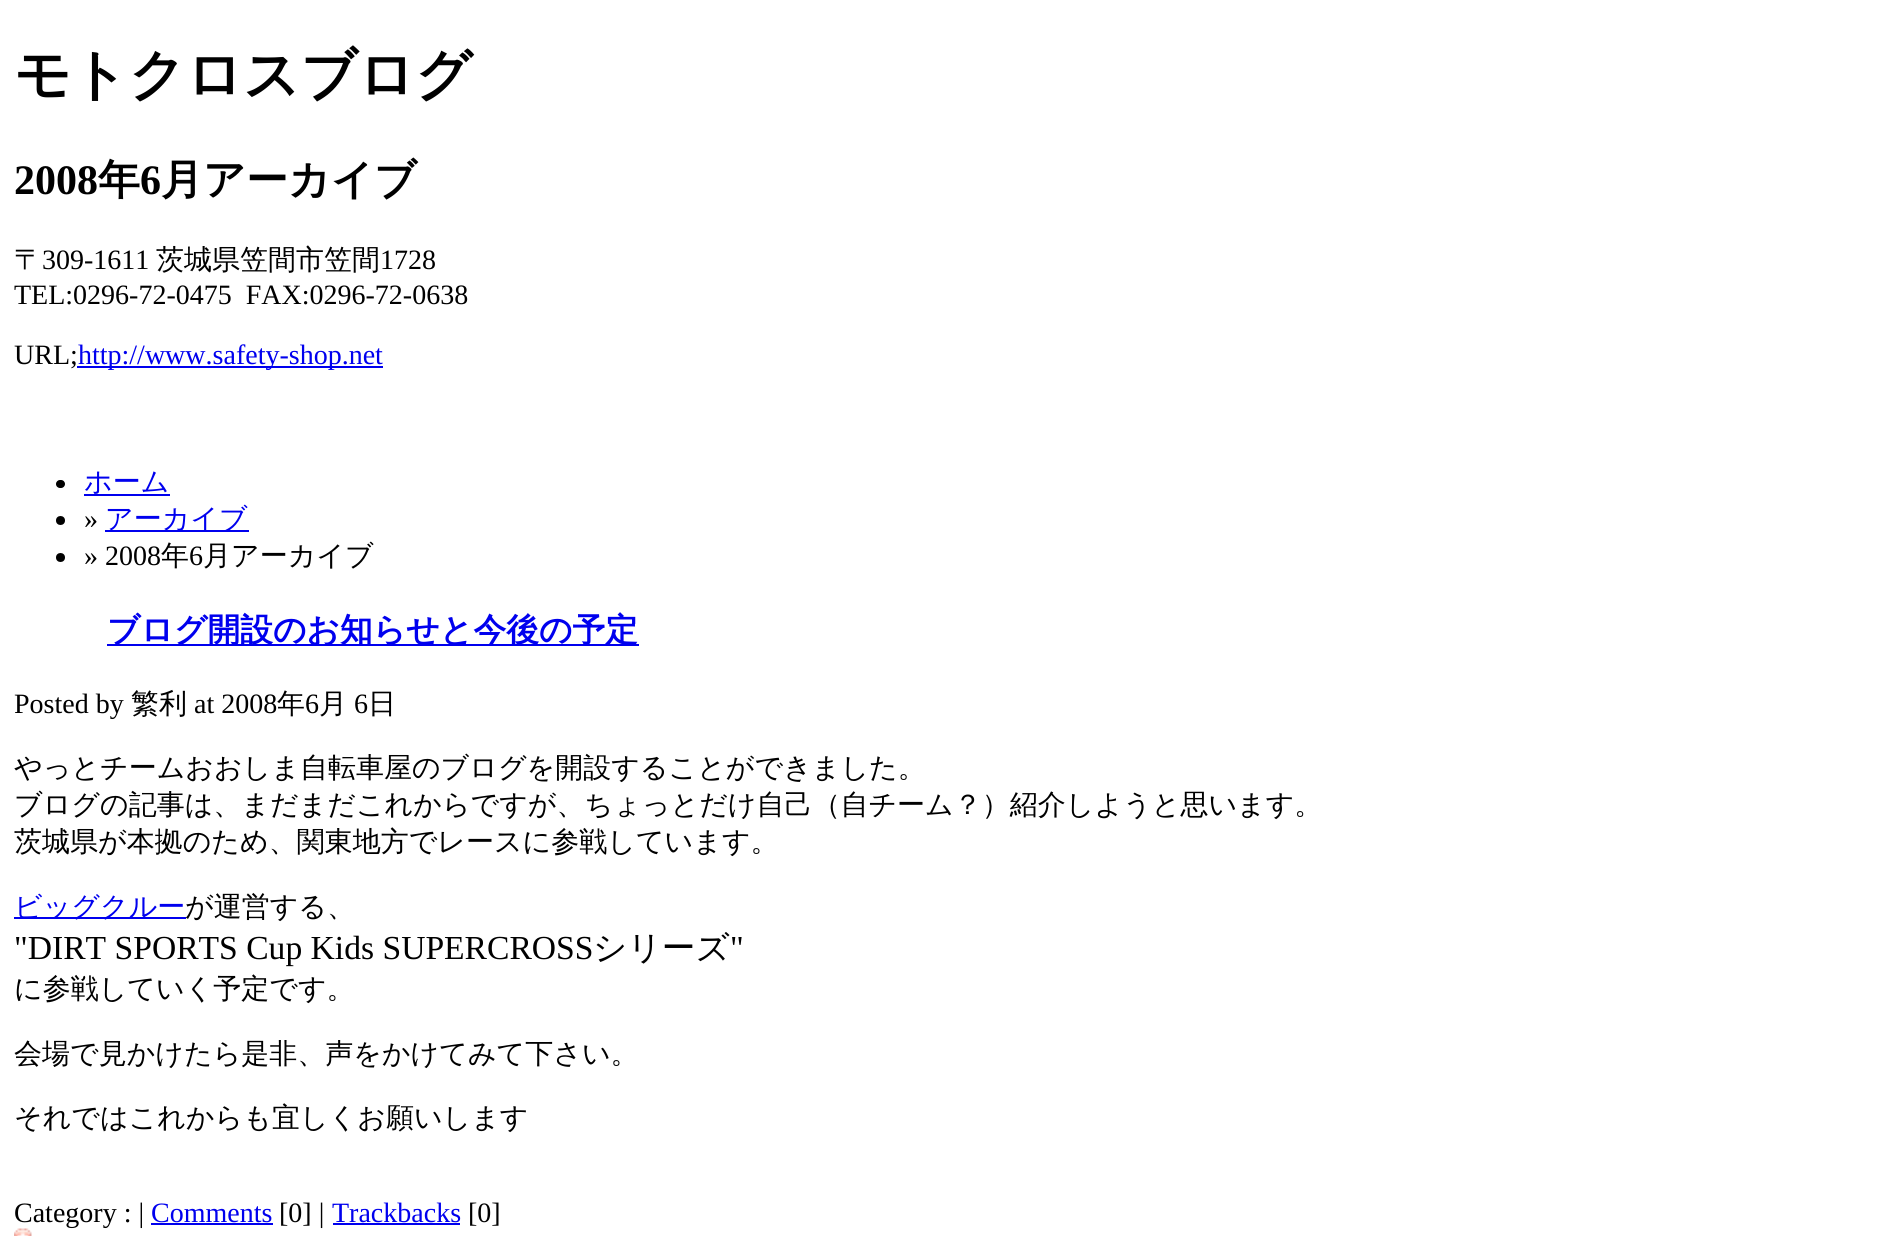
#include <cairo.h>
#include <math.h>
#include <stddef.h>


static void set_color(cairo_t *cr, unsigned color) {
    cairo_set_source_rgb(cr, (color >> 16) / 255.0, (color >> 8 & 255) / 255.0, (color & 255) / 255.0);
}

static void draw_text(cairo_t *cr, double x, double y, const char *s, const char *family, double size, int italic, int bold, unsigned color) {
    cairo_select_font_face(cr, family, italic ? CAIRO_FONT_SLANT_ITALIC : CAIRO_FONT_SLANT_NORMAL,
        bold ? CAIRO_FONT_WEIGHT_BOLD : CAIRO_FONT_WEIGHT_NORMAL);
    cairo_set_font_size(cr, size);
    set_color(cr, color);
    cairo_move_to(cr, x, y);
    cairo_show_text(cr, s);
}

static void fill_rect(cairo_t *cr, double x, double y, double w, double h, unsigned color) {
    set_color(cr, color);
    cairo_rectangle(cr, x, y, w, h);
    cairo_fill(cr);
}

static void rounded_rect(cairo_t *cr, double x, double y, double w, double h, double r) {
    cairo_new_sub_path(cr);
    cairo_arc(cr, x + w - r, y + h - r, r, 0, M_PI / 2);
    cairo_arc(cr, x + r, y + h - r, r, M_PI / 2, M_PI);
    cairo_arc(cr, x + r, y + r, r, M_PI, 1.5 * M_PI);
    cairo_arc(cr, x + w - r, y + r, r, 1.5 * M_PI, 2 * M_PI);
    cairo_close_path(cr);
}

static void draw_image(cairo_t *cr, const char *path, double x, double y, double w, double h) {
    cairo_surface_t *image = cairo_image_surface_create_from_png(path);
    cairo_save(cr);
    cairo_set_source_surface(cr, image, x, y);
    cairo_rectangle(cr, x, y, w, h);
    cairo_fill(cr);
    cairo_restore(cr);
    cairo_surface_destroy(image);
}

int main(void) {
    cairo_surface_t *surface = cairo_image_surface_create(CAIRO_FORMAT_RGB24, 1882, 1236);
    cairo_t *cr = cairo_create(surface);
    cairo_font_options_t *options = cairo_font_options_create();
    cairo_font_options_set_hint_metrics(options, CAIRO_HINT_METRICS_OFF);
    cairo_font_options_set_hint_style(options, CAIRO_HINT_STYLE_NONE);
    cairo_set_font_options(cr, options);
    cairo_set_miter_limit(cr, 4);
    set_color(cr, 0xFFFFFF);
    cairo_paint(cr);
    draw_text(cr, 14, 94, "モトクロスブログ", "WenQuanYi Zen Hei", 56, 0, 1, 0x000000);
    draw_text(cr, 14, 194, "2008", "Liberation Serif", 42, 0, 1, 0x000000);
    draw_text(cr, 98, 194, "年", "WenQuanYi Zen Hei", 42, 0, 1, 0x000000);
    draw_text(cr, 140, 194, "6", "Liberation Serif", 42, 0, 1, 0x000000);
    draw_text(cr, 161, 194, "月アーカイブ", "WenQuanYi Zen Hei", 42, 0, 1, 0x000000);
    draw_text(cr, 14, 269, "〒", "WenQuanYi Zen Hei Medium", 28, 0, 0, 0x000000);
    draw_text(cr, 42, 269, "309-1611", "Liberation Serif", 28, 0, 0, 0x000000);
    draw_text(cr, 156, 269, "茨城県笠間市笠間", "WenQuanYi Zen Hei Medium", 28, 0, 0, 0x000000);
    draw_text(cr, 380, 269, "1728", "Liberation Serif", 28, 0, 0, 0x000000);
    draw_text(cr, 14, 304, "TEL:0296-72-0475  FAX:0296-72-0638", "Liberation Serif", 28, 0, 0, 0x000000);
    draw_text(cr, 14, 364, "URL;", "Liberation Serif", 28, 0, 0, 0x000000);
    fill_rect(cr, 77, 366, 306, 2, 0x0000EE);
    draw_text(cr, 78, 364, "http://www.safety-shop.net", "Liberation Serif", 28, 0, 0, 0x0000EE);
    set_color(cr, 0x000000);
    rounded_rect(cr, 56, 480, 9, 8, 4);
    cairo_fill(cr);
    draw_text(cr, 84, 491, "ホーム", "WenQuanYi Zen Hei Medium", 28, 0, 0, 0x0000EE);
    fill_rect(cr, 84, 494, 86, 2, 0x0000EE);
    set_color(cr, 0x000000);
    cairo_new_path(cr);
    cairo_arc(cr, 60.5, 520.5, 4.5, 0, 2 * M_PI);
    cairo_fill(cr);
    draw_text(cr, 84, 528, "»", "Liberation Serif", 28, 0, 0, 0x000000);
    fill_rect(cr, 105, 530, 144, 2, 0x0000EE);
    draw_text(cr, 105, 528, "アーカイブ", "WenQuanYi Zen Hei Medium", 28, 0, 0, 0x0000EE);
    set_color(cr, 0x000000);
    cairo_new_path(cr);
    cairo_arc(cr, 60.5, 557.5, 4.5, 0, 2 * M_PI);
    cairo_fill(cr);
    draw_text(cr, 84, 565, "» 2008", "Liberation Serif", 28, 0, 0, 0x000000);
    draw_text(cr, 161, 565, "年", "WenQuanYi Zen Hei Medium", 28, 0, 0, 0x000000);
    draw_text(cr, 189, 565, "6", "Liberation Serif", 28, 0, 0, 0x000000);
    draw_text(cr, 203, 565, "月アーカイブ", "WenQuanYi Zen Hei Medium", 28, 0, 0, 0x000000);
    fill_rect(cr, 107, 644, 532, 2, 0x0000EE);
    draw_text(cr, 107, 641, "ブログ開設のお知らせと今後の予定", "WenQuanYi Zen Hei", 32.75, 0, 1, 0x0000EE);
    draw_text(cr, 14, 713, "Posted by", "Liberation Serif", 28, 0, 0, 0x000000);
    draw_text(cr, 131, 713, "繁利", "WenQuanYi Zen Hei Medium", 28, 0, 0, 0x000000);
    draw_text(cr, 194, 713, "at 2008", "Liberation Serif", 28, 0, 0, 0x000000);
    draw_text(cr, 277, 713, "年", "WenQuanYi Zen Hei Medium", 28, 0, 0, 0x000000);
    draw_text(cr, 305, 713, "6", "Liberation Serif", 28, 0, 0, 0x000000);
    draw_text(cr, 319, 713, "月", "WenQuanYi Zen Hei Medium", 28, 0, 0, 0x000000);
    draw_text(cr, 354, 713, "6", "Liberation Serif", 28, 0, 0, 0x000000);
    draw_text(cr, 368, 713, "日", "WenQuanYi Zen Hei Medium", 28, 0, 0, 0x000000);
    draw_text(cr, 14, 777, "やっとチームおおしま自転車屋のブログを開設することができました。", "WenQuanYi Zen Hei Medium", 28, 0, 0, 0x000000);
    draw_text(cr, 14, 814, "ブログの記事は、まだまだこれからですが、ちょっとだけ自己（自チーム？）紹介しようと思います。", "WenQuanYi Zen Hei Medium", 28, 0, 0, 0x000000);
    draw_text(cr, 14, 851, "茨城県が本拠のため、関東地方でレースに参戦しています。", "WenQuanYi Zen Hei Medium", 28, 0, 0, 0x000000);
    fill_rect(cr, 14, 917, 172, 2, 0x0000EE);
    draw_text(cr, 14, 916, "ビッグクルー", "WenQuanYi Zen Hei Medium", 28, 0, 0, 0x0000EE);
    draw_text(cr, 185, 916, "が運営する、", "WenQuanYi Zen Hei Medium", 28, 0, 0, 0x000000);
    draw_text(cr, 14, 959, "\"DIRT SPORTS Cup Kids SUPERCROSS", "Liberation Serif", 33.6, 0, 0, 0x000000);
    draw_text(cr, 593, 959, "シリーズ", "WenQuanYi Zen Hei Medium", 33.6, 0, 0, 0x000000);
    draw_text(cr, 730, 959, "\"", "Liberation Serif", 33.6, 0, 0, 0x000000);
    draw_text(cr, 14, 998, "に参戦していく予定です。", "WenQuanYi Zen Hei Medium", 28, 0, 0, 0x000000);
    draw_text(cr, 14, 1063, "会場で見かけたら是非、声をかけてみて下さい。", "WenQuanYi Zen Hei Medium", 28, 0, 0, 0x000000);
    draw_text(cr, 14, 1127, "それではこれからも宜しくお願いします", "WenQuanYi Zen Hei Medium", 28, 0, 0, 0x000000);
    draw_text(cr, 14, 1222, "Category : |", "Liberation Serif", 28, 0, 0, 0x000000);
    draw_text(cr, 151, 1222, "Comments", "Liberation Serif", 28, 0, 0, 0x0000EE);
    fill_rect(cr, 151, 1223, 122, 2, 0x0000EE);
    draw_text(cr, 279, 1222, "[0] |", "Liberation Serif", 28, 0, 0, 0x000000);
    draw_text(cr, 332, 1222, "Trackbacks", "Liberation Serif", 28, 0, 0, 0x0000EE);
    fill_rect(cr, 333, 1223, 127, 2, 0x0000EE);
    draw_text(cr, 468, 1222, "[0]", "Liberation Serif", 28, 0, 0, 0x000000);
    draw_image(cr, "assets/img1.png", 14, 1228, 18, 8);
    cairo_surface_write_to_png(surface, "output.png");
    cairo_font_options_destroy(options);
    cairo_destroy(cr);
    cairo_surface_destroy(surface);
    return 0;
}
